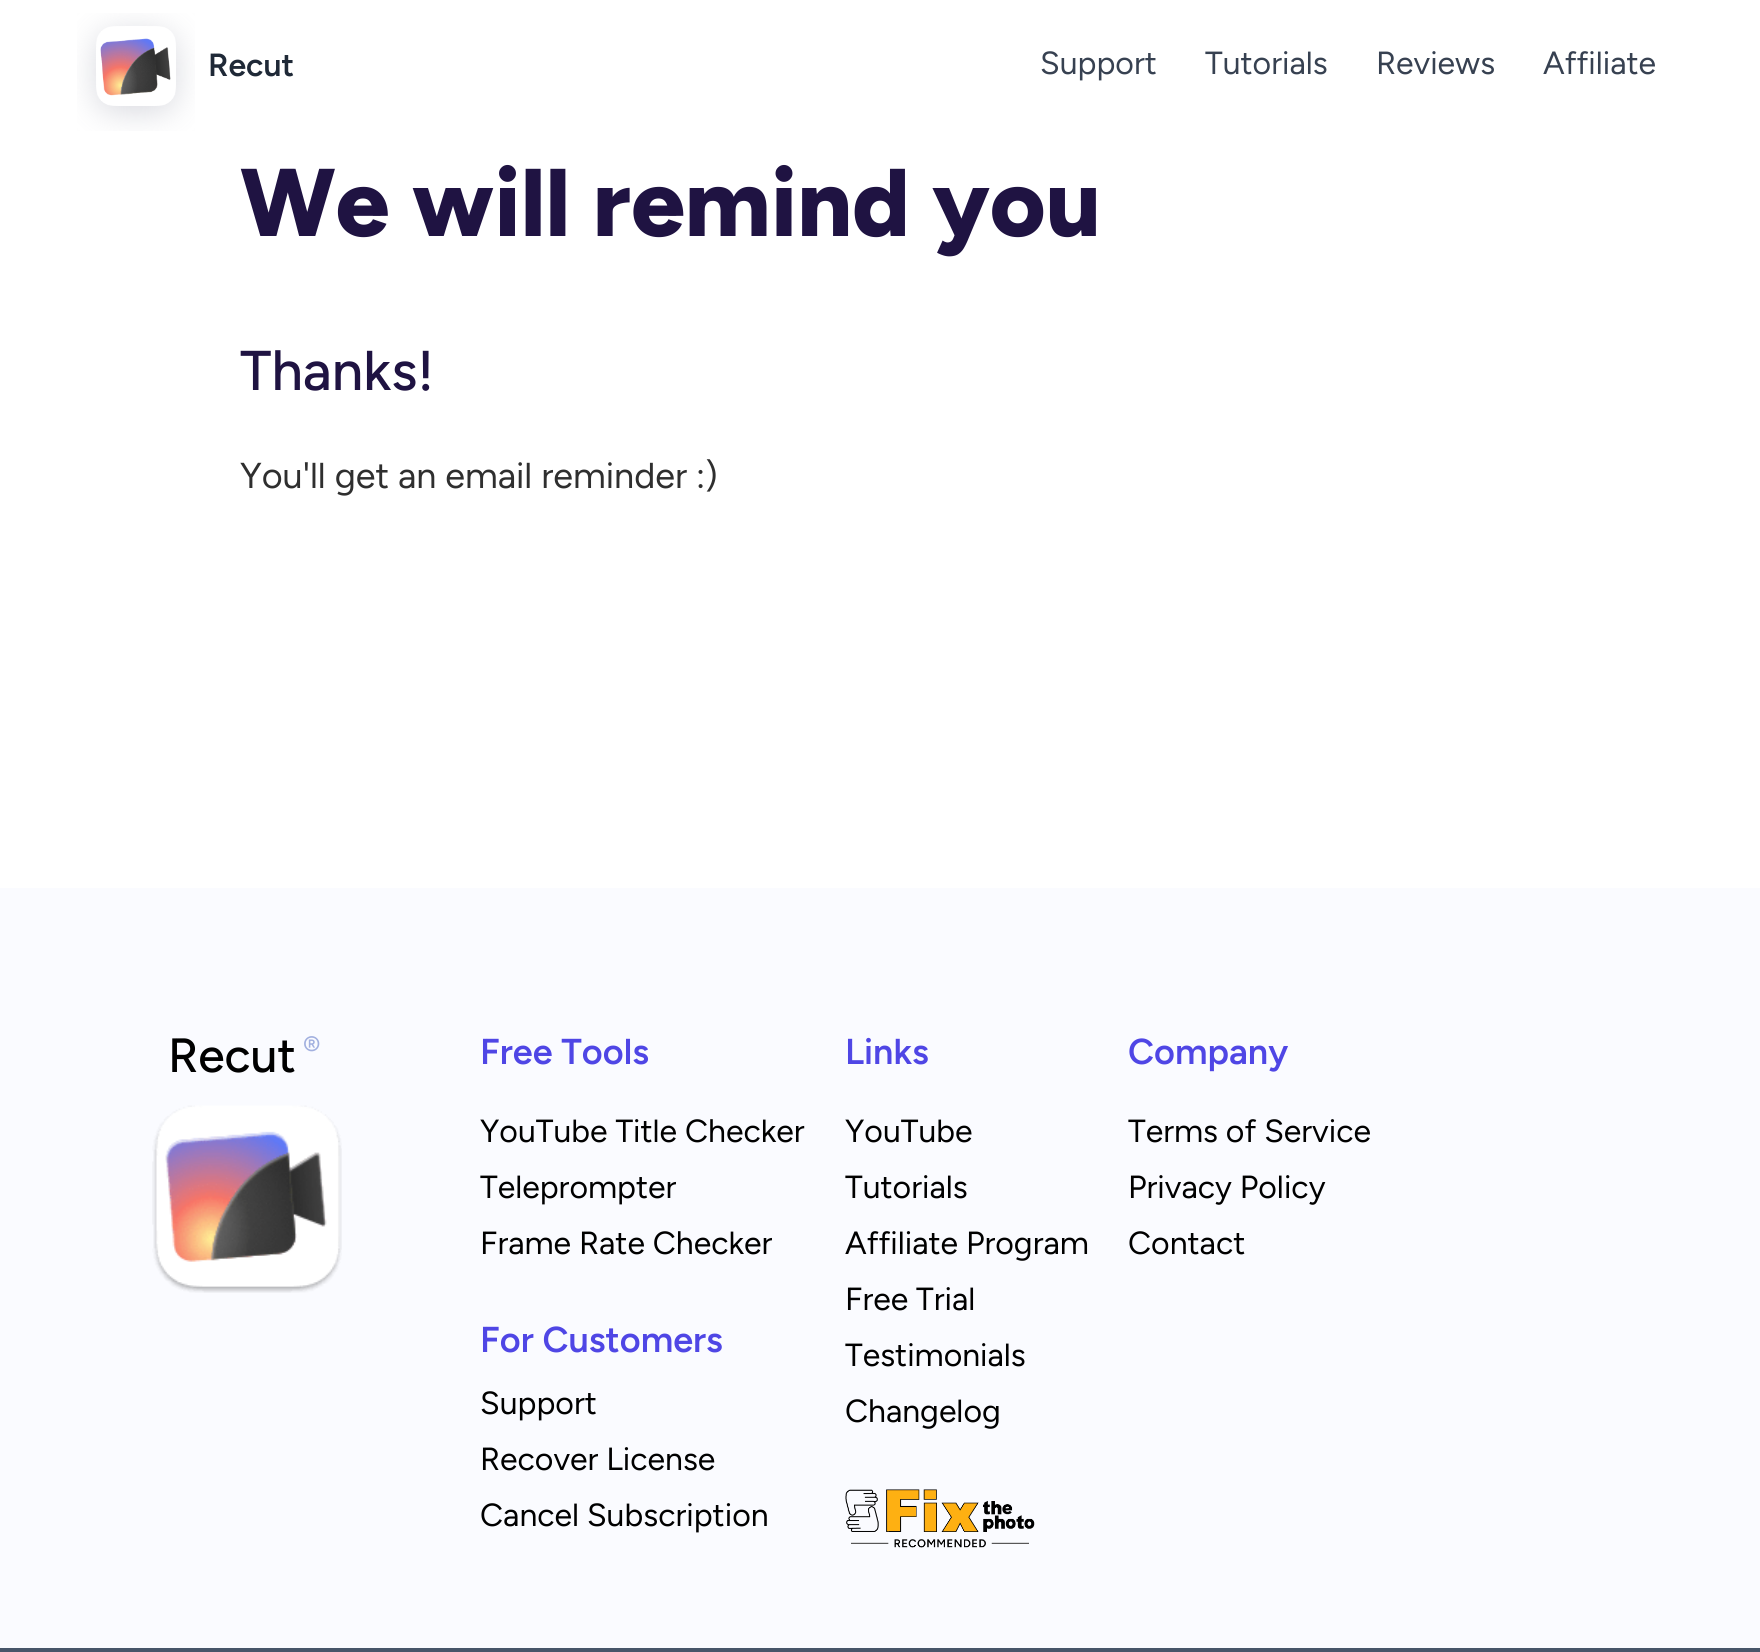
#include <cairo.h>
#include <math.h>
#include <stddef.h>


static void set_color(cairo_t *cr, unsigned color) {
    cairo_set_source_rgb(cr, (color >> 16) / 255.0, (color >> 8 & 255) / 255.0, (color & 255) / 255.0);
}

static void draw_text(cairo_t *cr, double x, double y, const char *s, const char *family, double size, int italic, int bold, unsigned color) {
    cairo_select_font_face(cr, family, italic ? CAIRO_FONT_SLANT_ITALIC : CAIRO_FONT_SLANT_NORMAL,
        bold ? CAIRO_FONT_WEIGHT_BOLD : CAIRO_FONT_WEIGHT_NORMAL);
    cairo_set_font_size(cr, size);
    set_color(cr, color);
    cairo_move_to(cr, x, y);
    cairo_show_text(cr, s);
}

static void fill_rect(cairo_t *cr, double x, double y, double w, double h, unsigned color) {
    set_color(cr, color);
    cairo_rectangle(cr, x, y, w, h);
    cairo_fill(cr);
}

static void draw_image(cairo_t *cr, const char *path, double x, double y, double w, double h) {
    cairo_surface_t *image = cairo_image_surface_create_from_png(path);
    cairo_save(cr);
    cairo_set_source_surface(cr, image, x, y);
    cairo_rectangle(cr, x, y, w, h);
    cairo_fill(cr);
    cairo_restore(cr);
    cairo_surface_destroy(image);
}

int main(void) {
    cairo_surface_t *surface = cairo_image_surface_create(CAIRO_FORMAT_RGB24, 1760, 1652);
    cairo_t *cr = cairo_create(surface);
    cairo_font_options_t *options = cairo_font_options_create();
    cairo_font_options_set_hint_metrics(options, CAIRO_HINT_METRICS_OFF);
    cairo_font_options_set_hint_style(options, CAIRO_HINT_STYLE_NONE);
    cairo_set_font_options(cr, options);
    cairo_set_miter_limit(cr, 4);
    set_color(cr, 0xFFFFFF);
    cairo_paint(cr);
    draw_image(cr, "assets/img1.png", 77, 13, 118, 118);
    draw_text(cr, 208, 76, "Recut", "Figtree SemiBold", 32, 0, 0, 0x1F2937);
    draw_text(cr, 1040, 74, "Support", "Figtree", 32, 0, 0, 0x374151);
    draw_text(cr, 1205, 74, "Tutorials", "Figtree", 32, 0, 0, 0x374151);
    draw_text(cr, 1376, 74, "Reviews", "Figtree", 32, 0, 0, 0x374151);
    draw_text(cr, 1543, 74, "Affiliate", "Figtree", 32, 0, 0, 0x374151);
    draw_text(cr, 240, 236, "We will remind you", "Figtree ExtraBold", 96, 0, 0, 0x1F1342);
    draw_text(cr, 240, 390, "Thanks!", "Figtree Medium", 56, 0, 0, 0x1F1342);
    draw_text(cr, 240, 488, "You'll get an email reminder :)", "Figtree", 36, 0, 0, 0x2F2F2F);
    fill_rect(cr, 0, 888, 1760, 760, 0xFAFBFF);
    draw_text(cr, 168, 1072, "Recut", "Figtree Medium", 48, 0, 0, 0x000000);
    draw_text(cr, 303, 1056, "®", "Figtree Medium", 28, 0, 0, 0xA2B0DF);
    draw_image(cr, "assets/img2.png", 152, 1105, 190, 188);
    draw_text(cr, 480, 1064, "Free Tools", "Figtree SemiBold", 36, 0, 0, 0x4F46E5);
    draw_text(cr, 480, 1142, "YouTube Title Checker", "Figtree", 32, 0, 0, 0x000000);
    draw_text(cr, 480, 1198, "Teleprompter", "Figtree", 32, 0, 0, 0x000000);
    draw_text(cr, 480, 1254, "Frame Rate Checker", "Figtree", 32, 0, 0, 0x000000);
    draw_text(cr, 480, 1352, "For Customers", "Figtree SemiBold", 36, 0, 0, 0x4F46E5);
    draw_text(cr, 480, 1414, "Support", "Figtree", 32, 0, 0, 0x000000);
    draw_text(cr, 480, 1470, "Recover License", "Figtree", 32, 0, 0, 0x000000);
    draw_text(cr, 480, 1526, "Cancel Subscription", "Figtree", 32, 0, 0, 0x000000);
    draw_text(cr, 845, 1064, "Links", "Figtree SemiBold", 36, 0, 0, 0x4F46E5);
    draw_text(cr, 845, 1142, "YouTube", "Figtree", 32, 0, 0, 0x000000);
    draw_text(cr, 845, 1198, "Tutorials", "Figtree", 32, 0, 0, 0x000000);
    draw_text(cr, 845, 1254, "Affiliate Program", "Figtree", 32, 0, 0, 0x000000);
    draw_text(cr, 845, 1310, "Free Trial", "Figtree", 32, 0, 0, 0x000000);
    draw_text(cr, 845, 1366, "Testimonials", "Figtree", 32, 0, 0, 0x000000);
    draw_text(cr, 845, 1422, "Changelog", "Figtree", 32, 0, 0, 0x000000);
    draw_image(cr, "assets/img3.png", 845, 1489, 190, 59);
    draw_text(cr, 1128, 1064, "Company", "Figtree SemiBold", 36, 0, 0, 0x4F46E5);
    draw_text(cr, 1128, 1142, "Terms of Service", "Figtree", 32, 0, 0, 0x000000);
    draw_text(cr, 1128, 1198, "Privacy Policy", "Figtree", 32, 0, 0, 0x000000);
    draw_text(cr, 1128, 1254, "Contact", "Figtree", 32, 0, 0, 0x000000);
    fill_rect(cr, 0, 1648, 1760, 4, 0x475569);
    cairo_surface_write_to_png(surface, "output.png");
    cairo_font_options_destroy(options);
    cairo_destroy(cr);
    cairo_surface_destroy(surface);
    return 0;
}
